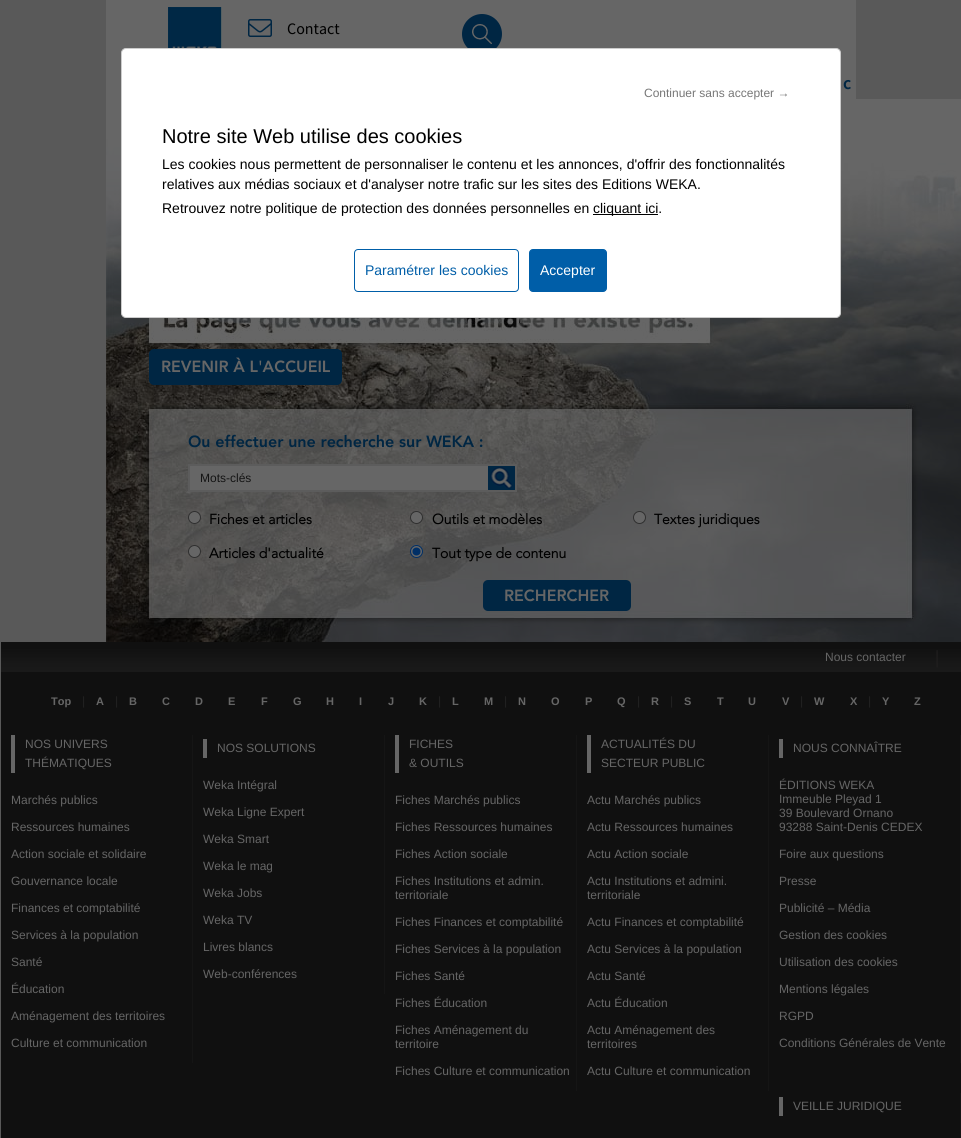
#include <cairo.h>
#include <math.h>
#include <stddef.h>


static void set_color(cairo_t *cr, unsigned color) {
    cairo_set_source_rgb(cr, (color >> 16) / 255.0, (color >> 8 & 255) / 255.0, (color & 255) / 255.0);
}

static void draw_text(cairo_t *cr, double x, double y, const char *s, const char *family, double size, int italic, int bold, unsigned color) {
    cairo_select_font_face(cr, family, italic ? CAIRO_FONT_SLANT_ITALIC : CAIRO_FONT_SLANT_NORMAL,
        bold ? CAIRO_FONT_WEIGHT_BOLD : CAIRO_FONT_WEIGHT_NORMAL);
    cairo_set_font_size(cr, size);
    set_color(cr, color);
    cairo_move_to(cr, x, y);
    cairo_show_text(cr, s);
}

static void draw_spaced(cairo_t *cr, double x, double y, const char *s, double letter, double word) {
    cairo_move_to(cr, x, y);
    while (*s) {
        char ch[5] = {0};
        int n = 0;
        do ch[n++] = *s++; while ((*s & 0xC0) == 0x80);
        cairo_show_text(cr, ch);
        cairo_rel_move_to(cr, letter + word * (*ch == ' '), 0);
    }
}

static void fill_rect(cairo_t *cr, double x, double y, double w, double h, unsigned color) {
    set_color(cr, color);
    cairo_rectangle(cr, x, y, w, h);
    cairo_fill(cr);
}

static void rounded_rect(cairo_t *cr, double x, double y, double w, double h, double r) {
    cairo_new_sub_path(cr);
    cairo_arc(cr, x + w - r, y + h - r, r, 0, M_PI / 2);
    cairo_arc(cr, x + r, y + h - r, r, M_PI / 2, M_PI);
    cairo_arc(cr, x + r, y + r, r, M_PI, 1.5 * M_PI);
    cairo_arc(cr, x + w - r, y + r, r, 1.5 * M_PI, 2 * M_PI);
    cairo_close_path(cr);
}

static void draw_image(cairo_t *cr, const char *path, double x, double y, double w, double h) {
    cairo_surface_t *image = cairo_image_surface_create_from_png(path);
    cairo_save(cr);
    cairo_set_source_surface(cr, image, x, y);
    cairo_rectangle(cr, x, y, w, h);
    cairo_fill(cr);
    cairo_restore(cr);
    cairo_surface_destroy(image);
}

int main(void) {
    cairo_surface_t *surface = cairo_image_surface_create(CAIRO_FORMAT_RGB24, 961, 1138);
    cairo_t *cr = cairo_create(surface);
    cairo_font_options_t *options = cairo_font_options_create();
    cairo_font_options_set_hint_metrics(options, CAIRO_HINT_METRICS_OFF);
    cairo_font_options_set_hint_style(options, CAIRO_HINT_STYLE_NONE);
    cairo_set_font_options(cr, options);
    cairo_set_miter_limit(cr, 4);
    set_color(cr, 0x595959);
    cairo_paint(cr);
    fill_rect(cr, 106, 0, 750, 99, 0x666666);
    draw_image(cr, "assets/img1.png", 168, 7, 54, 41);
    draw_image(cr, "assets/img2.png", 248, 19, 24, 18);
    draw_text(cr, 287, 34, "Contact", "Source Sans Pro", 16, 0, 0, 0x000000);
    set_color(cr, 0x002643);
    cairo_new_path(cr);
    cairo_arc(cr, 482, 34, 20, 0, 2 * M_PI);
    cairo_fill(cr);
    draw_image(cr, "assets/img3.png", 472, 24, 20, 20);
    cairo_select_font_face(cr, "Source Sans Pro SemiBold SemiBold", CAIRO_FONT_SLANT_NORMAL, CAIRO_FONT_WEIGHT_NORMAL);
    cairo_set_font_size(cr, 18);
    draw_spaced(cr, 843, 89, "c", 1, 0);
    draw_image(cr, "assets/img4.png", 106, 99, 855, 543);
    set_color(cr, 0xFFFFFF);
    rounded_rect(cr, 121.5, 48.5, 719, 269, 4.5);
    cairo_fill_preserve(cr);
    set_color(cr, 0xCCCCCC);
    cairo_set_line_width(cr, 1);
    cairo_stroke(cr);
    draw_text(cr, 644, 97, "Continuer sans accepter →", "Liberation Sans", 12, 0, 0, 0x777777);
    draw_text(cr, 162, 143, "Notre site Web utilise des cookies", "Liberation Sans", 20, 0, 0, 0x000000);
    draw_text(cr, 162, 169, "Les cookies nous permettent de personnaliser le contenu et les annonces, d'offrir des fonctionnalités", "Liberation Sans", 14, 0, 0, 0x000000);
    draw_text(cr, 162, 189, "relatives aux médias sociaux et d'analyser notre trafic sur les sites des Editions WEKA.", "Liberation Sans", 14, 0, 0, 0x000000);
    draw_text(cr, 162, 213, "Retrouvez notre politique de protection des données personnelles en", "Liberation Sans", 14, 0, 0, 0x000000);
    fill_rect(cr, 593, 214, 65, 1, 0x000000);
    draw_text(cr, 593, 213, "cliquant ici.", "Liberation Sans", 14, 0, 0, 0x000000);
    rounded_rect(cr, 354.5, 249.5, 164, 42, 3.5);
    set_color(cr, 0x005EA8);
    cairo_stroke(cr);
    draw_text(cr, 365, 275, "Paramétrer les cookies", "Liberation Sans", 14, 0, 0, 0x005EA8);
    rounded_rect(cr, 529.5, 249.5, 77, 42, 3.5);
    cairo_fill_preserve(cr);
    cairo_stroke(cr);
    draw_text(cr, 540, 275, "Accepter", "Liberation Sans", 14, 0, 0, 0xFFFFFF);
    set_color(cr, 0x002643);
    rounded_rect(cr, 149, 349, 193, 36, 5);
    cairo_fill(cr);
    draw_text(cr, 161, 372, "REVENIR À L'ACCUEIL", "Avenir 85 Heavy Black", 16, 0, 0, 0x666666);
    draw_text(cr, 188, 447, "Ou effectuer une recherche sur WEKA :", "Avenir 85 Heavy Black", 16, 0, 0, 0x002643);
    fill_rect(cr, 190, 466, 298, 24, 0x666666);
    fill_rect(cr, 188, 464, 329, 2, 0x5C5C5C);
    fill_rect(cr, 188, 490, 300, 2, 0x5C5C5C);
    fill_rect(cr, 188, 464, 2, 28, 0x5C5C5C);
    draw_text(cr, 200, 482, "Mots-clés", "Liberation Sans", 12, 0, 0, 0x141414);
    draw_image(cr, "assets/img5.png", 488, 466, 27, 24);
    fill_rect(cr, 515, 464, 2, 28, 0x5C5C5C);
    fill_rect(cr, 488, 490, 29, 2, 0x5C5C5C);
    set_color(cr, 0x666666);
    cairo_arc(cr, 194.5, 517.5, 6, 0, 2 * M_PI);
    cairo_fill_preserve(cr);
    set_color(cr, 0x2F2F2F);
    cairo_stroke(cr);
    draw_text(cr, 209, 524, "Fiches et articles", "Avenir", 14, 0, 1, 0x000000);
    set_color(cr, 0x666666);
    cairo_new_path(cr);
    cairo_arc(cr, 416.5, 517.5, 6, 0, 2 * M_PI);
    cairo_fill_preserve(cr);
    set_color(cr, 0x2F2F2F);
    cairo_stroke(cr);
    draw_text(cr, 432, 524, "Outils et modèles", "Avenir", 14, 0, 1, 0x000000);
    set_color(cr, 0x666666);
    cairo_new_path(cr);
    cairo_arc(cr, 639.5, 517.5, 6, 0, 2 * M_PI);
    cairo_fill_preserve(cr);
    set_color(cr, 0x2F2F2F);
    cairo_stroke(cr);
    draw_text(cr, 654, 524, "Textes juridiques", "Avenir", 14, 0, 1, 0x000000);
    set_color(cr, 0x666666);
    cairo_new_path(cr);
    cairo_arc(cr, 194.5, 551.5, 6, 0, 2 * M_PI);
    cairo_fill_preserve(cr);
    set_color(cr, 0x2F2F2F);
    cairo_stroke(cr);
    draw_text(cr, 209, 558, "Articles d'actualité", "Avenir", 14, 0, 1, 0x000000);
    set_color(cr, 0x666666);
    cairo_new_path(cr);
    cairo_arc(cr, 416.5, 551.5, 6, 0, 2 * M_PI);
    cairo_fill_preserve(cr);
    set_color(cr, 0x002F66);
    cairo_stroke(cr);
    cairo_arc(cr, 416.5, 551.5, 4, 0, 2 * M_PI);
    cairo_fill(cr);
    draw_text(cr, 432, 558, "Tout type de contenu", "Avenir", 14, 0, 1, 0x000000);
    set_color(cr, 0x002643);
    rounded_rect(cr, 483, 580, 148, 31, 5);
    cairo_fill(cr);
    draw_text(cr, 504, 601, "RECHERCHER", "Avenir 85 Heavy Black", 16, 0, 0, 0x666666);
    fill_rect(cr, 1, 642, 960, 496, 0x101010);
    draw_image(cr, "assets/img6.png", 1, 649, 960, 23);
    draw_text(cr, 825, 661, "Nous contacter", "Liberation Sans", 12, 0, 0, 0x666666);
    draw_text(cr, 935, 663, "|", "Source Sans Pro", 17, 0, 0, 0x222121);
    draw_text(cr, 51, 705, "Top", "Liberation Sans", 11, 0, 1, 0x666666);
    draw_text(cr, 82, 705, "|", "Liberation Sans", 12, 0, 0, 0x222121);
    draw_text(cr, 96, 705, "A", "Liberation Sans", 11, 0, 1, 0x666666);
    draw_text(cr, 115, 705, "|", "Liberation Sans", 12, 0, 0, 0x222121);
    draw_text(cr, 129, 705, "B", "Liberation Sans", 11, 0, 1, 0x666666);
    draw_text(cr, 162, 705, "C", "Liberation Sans", 11, 0, 1, 0x666666);
    draw_text(cr, 195, 705, "D", "Liberation Sans", 11, 0, 1, 0x666666);
    draw_text(cr, 228, 705, "E", "Liberation Sans", 11, 0, 1, 0x666666);
    draw_text(cr, 261, 705, "F", "Liberation Sans", 11, 0, 1, 0x666666);
    draw_text(cr, 293, 705, "G", "Liberation Sans", 11, 0, 1, 0x666666);
    draw_text(cr, 326, 705, "H", "Liberation Sans", 11, 0, 1, 0x666666);
    draw_text(cr, 359, 705, "I", "Liberation Sans", 11, 0, 1, 0x666666);
    draw_text(cr, 388, 705, "J", "Liberation Sans", 11, 0, 1, 0x666666);
    draw_text(cr, 419, 705, "K", "Liberation Sans", 11, 0, 1, 0x666666);
    draw_text(cr, 438, 705, "|", "Liberation Sans", 12, 0, 0, 0x222121);
    draw_text(cr, 452, 705, "L", "Liberation Sans", 11, 0, 1, 0x666666);
    draw_text(cr, 484, 705, "M", "Liberation Sans", 11, 0, 1, 0x666666);
    draw_text(cr, 504, 705, "|", "Liberation Sans", 12, 0, 0, 0x222121);
    draw_text(cr, 518, 705, "N", "Liberation Sans", 11, 0, 1, 0x666666);
    draw_text(cr, 551, 705, "O", "Liberation Sans", 11, 0, 1, 0x666666);
    draw_text(cr, 585, 705, "P", "Liberation Sans", 11, 0, 1, 0x666666);
    draw_text(cr, 617, 705, "Q", "Liberation Sans", 11, 0, 1, 0x666666);
    draw_text(cr, 637, 705, "|", "Liberation Sans", 12, 0, 0, 0x222121);
    draw_text(cr, 651, 705, "R", "Liberation Sans", 11, 0, 1, 0x666666);
    draw_text(cr, 670, 705, "|", "Liberation Sans", 12, 0, 0, 0x222121);
    draw_text(cr, 684, 705, "S", "Liberation Sans", 11, 0, 1, 0x666666);
    draw_text(cr, 717, 705, "T", "Liberation Sans", 11, 0, 1, 0x666666);
    draw_text(cr, 748, 705, "U", "Liberation Sans", 11, 0, 1, 0x666666);
    draw_text(cr, 782, 705, "V", "Liberation Sans", 11, 0, 1, 0x666666);
    draw_text(cr, 800, 705, "|", "Liberation Sans", 12, 0, 0, 0x222121);
    draw_text(cr, 814, 705, "W", "Liberation Sans", 11, 0, 1, 0x666666);
    draw_text(cr, 850, 705, "X", "Liberation Sans", 11, 0, 1, 0x666666);
    draw_text(cr, 868, 705, "|", "Liberation Sans", 12, 0, 0, 0x222121);
    draw_text(cr, 882, 705, "Y", "Liberation Sans", 11, 0, 1, 0x666666);
    draw_text(cr, 914, 705, "Z", "Liberation Sans", 11, 0, 1, 0x666666);
    fill_rect(cr, 192, 735, 1, 328, 0x151515);
    fill_rect(cr, 11, 735, 4, 38, 0x666666);
    draw_text(cr, 25, 748, "NOS UNIVERS", "Liberation Sans", 12, 0, 0, 0x666666);
    draw_text(cr, 25, 767, "THÉMATIQUES", "Liberation Sans", 12, 0, 0, 0x666666);
    draw_text(cr, 11, 804, "Marchés publics", "Liberation Sans", 12, 0, 0, 0x666666);
    draw_text(cr, 11, 831, "Ressources humaines", "Liberation Sans", 12, 0, 0, 0x666666);
    draw_text(cr, 11, 858, "Action sociale et solidaire", "Liberation Sans", 12, 0, 0, 0x666666);
    draw_text(cr, 11, 885, "Gouvernance locale", "Liberation Sans", 12, 0, 0, 0x666666);
    draw_text(cr, 11, 912, "Finances et comptabilité", "Liberation Sans", 12, 0, 0, 0x666666);
    draw_text(cr, 11, 939, "Services à la population", "Liberation Sans", 12, 0, 0, 0x666666);
    draw_text(cr, 11, 966, "Santé", "Liberation Sans", 12, 0, 0, 0x666666);
    draw_text(cr, 11, 993, "Éducation", "Liberation Sans", 12, 0, 0, 0x666666);
    draw_text(cr, 11, 1020, "Aménagement des territoires", "Liberation Sans", 12, 0, 0, 0x666666);
    draw_text(cr, 11, 1047, "Culture et communication", "Liberation Sans", 12, 0, 0, 0x666666);
    fill_rect(cr, 384, 735, 1, 259, 0x151515);
    fill_rect(cr, 203, 739, 4, 19, 0x666666);
    draw_text(cr, 217, 752, "NOS SOLUTIONS", "Liberation Sans", 12, 0, 0, 0x666666);
    draw_text(cr, 203, 789, "Weka Intégral", "Liberation Sans", 12, 0, 0, 0x666666);
    draw_text(cr, 203, 816, "Weka Ligne Expert", "Liberation Sans", 12, 0, 0, 0x666666);
    draw_text(cr, 203, 843, "Weka Smart", "Liberation Sans", 12, 0, 0, 0x666666);
    draw_text(cr, 203, 870, "Weka le mag", "Liberation Sans", 12, 0, 0, 0x666666);
    draw_text(cr, 203, 897, "Weka Jobs", "Liberation Sans", 12, 0, 0, 0x666666);
    draw_text(cr, 203, 924, "Weka TV", "Liberation Sans", 12, 0, 0, 0x666666);
    draw_text(cr, 203, 951, "Livres blancs", "Liberation Sans", 12, 0, 0, 0x666666);
    draw_text(cr, 203, 978, "Web-conférences", "Liberation Sans", 12, 0, 0, 0x666666);
    fill_rect(cr, 576, 735, 1, 356, 0x151515);
    fill_rect(cr, 395, 735, 4, 38, 0x666666);
    draw_text(cr, 409, 748, "FICHES", "Liberation Sans", 12, 0, 0, 0x666666);
    draw_text(cr, 409, 767, "& OUTILS", "Liberation Sans", 12, 0, 0, 0x666666);
    draw_text(cr, 395, 804, "Fiches Marchés publics", "Liberation Sans", 12, 0, 0, 0x666666);
    draw_text(cr, 395, 831, "Fiches Ressources humaines", "Liberation Sans", 12, 0, 0, 0x666666);
    draw_text(cr, 395, 858, "Fiches Action sociale", "Liberation Sans", 12, 0, 0, 0x666666);
    draw_text(cr, 395, 885, "Fiches Institutions et admin.", "Liberation Sans", 12, 0, 0, 0x666666);
    draw_text(cr, 395, 899, "territoriale", "Liberation Sans", 12, 0, 0, 0x666666);
    draw_text(cr, 395, 926, "Fiches Finances et comptabilité", "Liberation Sans", 12, 0, 0, 0x666666);
    draw_text(cr, 395, 953, "Fiches Services à la population", "Liberation Sans", 12, 0, 0, 0x666666);
    draw_text(cr, 395, 980, "Fiches Santé", "Liberation Sans", 12, 0, 0, 0x666666);
    draw_text(cr, 395, 1007, "Fiches Éducation", "Liberation Sans", 12, 0, 0, 0x666666);
    draw_text(cr, 395, 1034, "Fiches Aménagement du", "Liberation Sans", 12, 0, 0, 0x666666);
    draw_text(cr, 395, 1048, "territoire", "Liberation Sans", 12, 0, 0, 0x666666);
    draw_text(cr, 395, 1075, "Fiches Culture et communication", "Liberation Sans", 12, 0, 0, 0x666666);
    fill_rect(cr, 768, 735, 1, 356, 0x151515);
    fill_rect(cr, 587, 735, 4, 38, 0x666666);
    draw_text(cr, 601, 748, "ACTUALITÉS DU", "Liberation Sans", 12, 0, 0, 0x666666);
    draw_text(cr, 601, 767, "SECTEUR PUBLIC", "Liberation Sans", 12, 0, 0, 0x666666);
    draw_text(cr, 587, 804, "Actu Marchés publics", "Liberation Sans", 12, 0, 0, 0x666666);
    draw_text(cr, 587, 831, "Actu Ressources humaines", "Liberation Sans", 12, 0, 0, 0x666666);
    draw_text(cr, 587, 858, "Actu Action sociale", "Liberation Sans", 12, 0, 0, 0x666666);
    draw_text(cr, 587, 885, "Actu Institutions et admini.", "Liberation Sans", 12, 0, 0, 0x666666);
    draw_text(cr, 587, 899, "territoriale", "Liberation Sans", 12, 0, 0, 0x666666);
    draw_text(cr, 587, 926, "Actu Finances et comptabilité", "Liberation Sans", 12, 0, 0, 0x666666);
    draw_text(cr, 587, 953, "Actu Services à la population", "Liberation Sans", 12, 0, 0, 0x666666);
    draw_text(cr, 587, 980, "Actu Santé", "Liberation Sans", 12, 0, 0, 0x666666);
    draw_text(cr, 587, 1007, "Actu Éducation", "Liberation Sans", 12, 0, 0, 0x666666);
    draw_text(cr, 587, 1034, "Actu Aménagement des", "Liberation Sans", 12, 0, 0, 0x666666);
    draw_text(cr, 587, 1048, "territoires", "Liberation Sans", 12, 0, 0, 0x666666);
    draw_text(cr, 587, 1075, "Actu Culture et communication", "Liberation Sans", 12, 0, 0, 0x666666);
    fill_rect(cr, 960, 735, 1, 328, 0x151515);
    fill_rect(cr, 779, 739, 4, 19, 0x666666);
    draw_text(cr, 793, 752, "NOUS CONNAÎTRE", "Liberation Sans", 12, 0, 0, 0x666666);
    draw_text(cr, 779, 789, "ÉDITIONS WEKA", "Liberation Sans", 12, 0, 0, 0x666666);
    draw_text(cr, 779, 803, "Immeuble Pleyad 1", "Liberation Sans", 12, 0, 0, 0x666666);
    draw_text(cr, 779, 817, "39 Boulevard Ornano", "Liberation Sans", 12, 0, 0, 0x666666);
    draw_text(cr, 779, 831, "93288 Saint-Denis CEDEX", "Liberation Sans", 12, 0, 0, 0x666666);
    draw_text(cr, 779, 858, "Foire aux questions", "Liberation Sans", 12, 0, 0, 0x666666);
    draw_text(cr, 779, 885, "Presse", "Liberation Sans", 12, 0, 0, 0x666666);
    draw_text(cr, 779, 912, "Publicité – Média", "Liberation Sans", 12, 0, 0, 0x666666);
    draw_text(cr, 779, 939, "Gestion des cookies", "Liberation Sans", 12, 0, 0, 0x666666);
    draw_text(cr, 779, 966, "Utilisation des cookies", "Liberation Sans", 12, 0, 0, 0x666666);
    draw_text(cr, 779, 993, "Mentions légales", "Liberation Sans", 12, 0, 0, 0x666666);
    draw_text(cr, 779, 1020, "RGPD", "Liberation Sans", 12, 0, 0, 0x666666);
    draw_text(cr, 779, 1047, "Conditions Générales de Vente", "Liberation Sans", 12, 0, 0, 0x666666);
    fill_rect(cr, 960, 1093, 1, 45, 0x151515);
    fill_rect(cr, 779, 1097, 4, 19, 0x666666);
    draw_text(cr, 793, 1110, "VEILLE JURIDIQUE", "Liberation Sans", 12, 0, 0, 0x666666);
    cairo_surface_write_to_png(surface, "output.png");
    cairo_font_options_destroy(options);
    cairo_destroy(cr);
    cairo_surface_destroy(surface);
    return 0;
}
